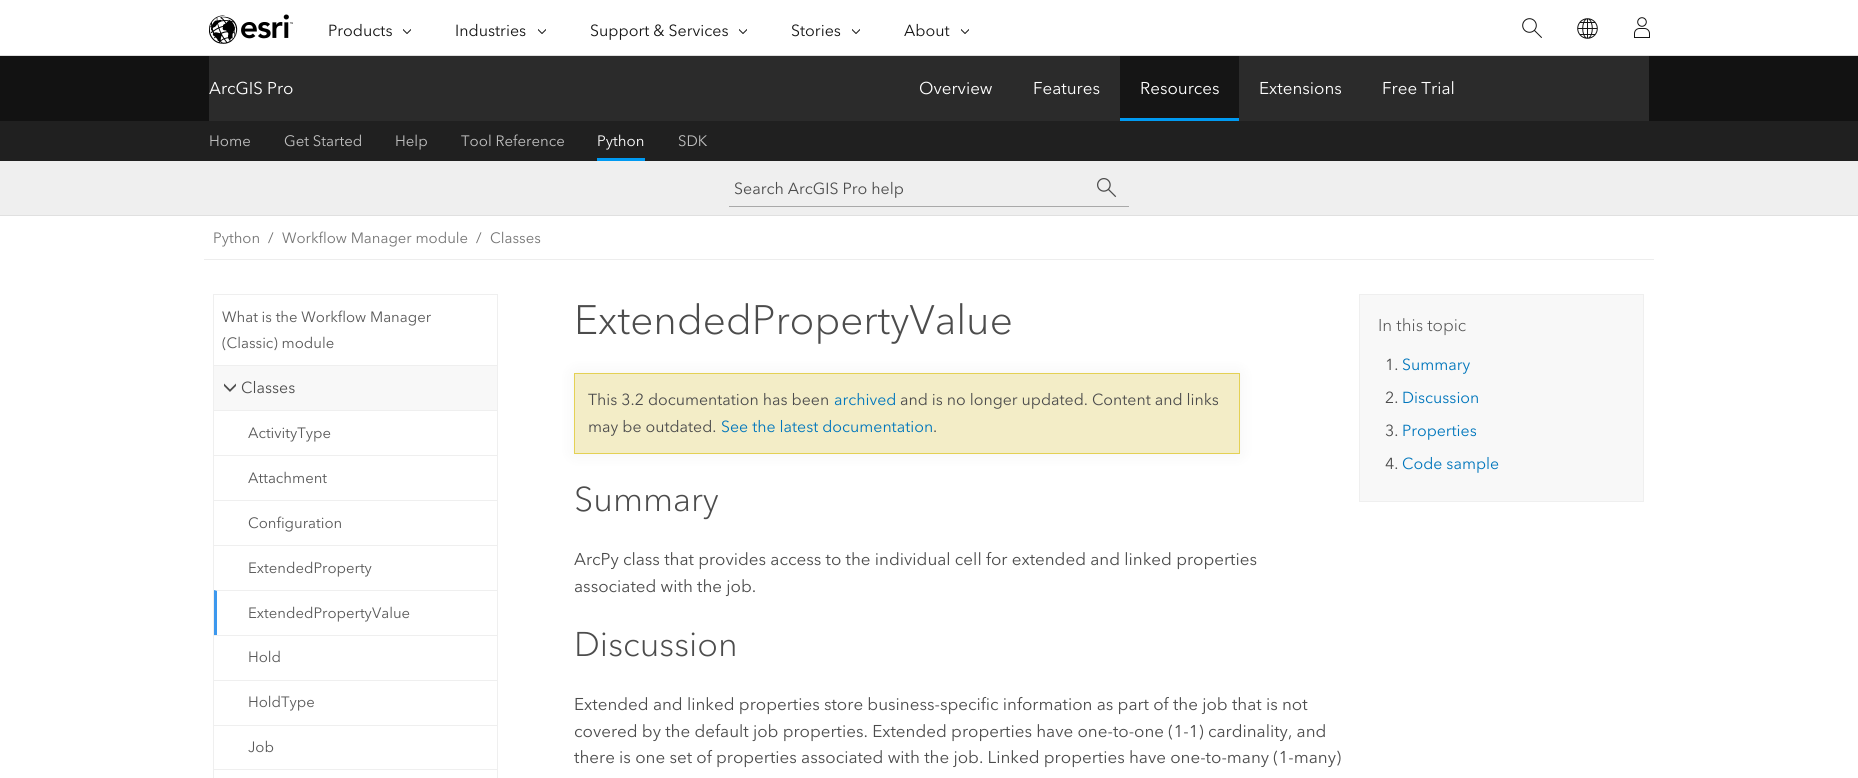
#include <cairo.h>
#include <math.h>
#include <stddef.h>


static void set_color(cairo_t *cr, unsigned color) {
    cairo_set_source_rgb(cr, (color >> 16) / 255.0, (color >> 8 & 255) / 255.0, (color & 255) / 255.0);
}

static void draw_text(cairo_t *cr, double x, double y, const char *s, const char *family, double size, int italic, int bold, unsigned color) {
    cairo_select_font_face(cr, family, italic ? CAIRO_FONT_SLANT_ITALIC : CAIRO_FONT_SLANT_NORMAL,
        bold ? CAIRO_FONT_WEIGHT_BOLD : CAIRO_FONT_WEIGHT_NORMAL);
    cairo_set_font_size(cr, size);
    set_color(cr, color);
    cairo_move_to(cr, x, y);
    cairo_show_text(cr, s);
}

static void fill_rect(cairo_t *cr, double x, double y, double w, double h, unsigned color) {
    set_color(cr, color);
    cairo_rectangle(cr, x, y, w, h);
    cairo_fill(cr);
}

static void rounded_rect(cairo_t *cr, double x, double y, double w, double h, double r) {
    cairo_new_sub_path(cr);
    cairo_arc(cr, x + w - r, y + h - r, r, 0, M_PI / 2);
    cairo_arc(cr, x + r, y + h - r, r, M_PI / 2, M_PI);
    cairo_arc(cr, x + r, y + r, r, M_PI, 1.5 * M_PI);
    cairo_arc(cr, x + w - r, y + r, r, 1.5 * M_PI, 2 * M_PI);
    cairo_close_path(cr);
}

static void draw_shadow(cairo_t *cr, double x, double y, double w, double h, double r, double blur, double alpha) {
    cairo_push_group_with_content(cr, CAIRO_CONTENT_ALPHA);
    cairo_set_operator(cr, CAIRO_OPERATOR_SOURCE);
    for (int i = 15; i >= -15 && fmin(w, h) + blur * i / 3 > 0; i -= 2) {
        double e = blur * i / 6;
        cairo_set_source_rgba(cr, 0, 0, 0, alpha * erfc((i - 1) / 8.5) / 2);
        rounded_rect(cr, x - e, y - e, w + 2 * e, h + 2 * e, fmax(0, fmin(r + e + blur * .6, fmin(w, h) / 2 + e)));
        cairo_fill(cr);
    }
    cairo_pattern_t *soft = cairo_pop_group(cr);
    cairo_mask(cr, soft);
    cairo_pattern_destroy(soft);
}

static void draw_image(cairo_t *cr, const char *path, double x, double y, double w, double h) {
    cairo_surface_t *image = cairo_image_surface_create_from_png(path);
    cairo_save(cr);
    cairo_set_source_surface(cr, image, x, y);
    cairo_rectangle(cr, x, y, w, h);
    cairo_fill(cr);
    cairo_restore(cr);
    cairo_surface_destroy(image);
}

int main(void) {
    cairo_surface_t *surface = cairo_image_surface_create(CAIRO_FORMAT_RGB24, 1858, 778);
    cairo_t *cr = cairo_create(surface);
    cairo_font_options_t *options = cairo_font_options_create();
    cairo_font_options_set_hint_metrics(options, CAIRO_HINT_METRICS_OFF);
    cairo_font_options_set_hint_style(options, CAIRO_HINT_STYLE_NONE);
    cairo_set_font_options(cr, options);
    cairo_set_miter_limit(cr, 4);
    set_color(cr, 0xFFFFFF);
    cairo_paint(cr);
    fill_rect(cr, 0, 55, 1858, 1, 0xDFDFDF);
    draw_image(cr, "assets/img1.png", 209, 14, 84, 30);
    draw_text(cr, 328, 36, "Products", "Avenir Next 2", 16, 0, 0, 0x151515);
    draw_image(cr, "assets/img2.png", 403, 29, 8, 5);
    draw_text(cr, 455, 36, "Industries", "Avenir Next 2", 16, 0, 0, 0x151515);
    draw_image(cr, "assets/img2.png", 538, 29, 8, 5);
    draw_text(cr, 590, 36, "Support & Services", "Avenir Next 2", 16, 0, 0, 0x151515);
    draw_image(cr, "assets/img2.png", 739, 29, 8, 5);
    draw_text(cr, 791, 36, "Stories", "Avenir Next 2", 16, 0, 0, 0x151515);
    draw_image(cr, "assets/img2.png", 852, 29, 8, 5);
    draw_text(cr, 904, 36, "About", "Avenir Next 2", 16, 0, 0, 0x151515);
    draw_image(cr, "assets/img2.png", 961, 29, 8, 5);
    draw_image(cr, "assets/img3.png", 1522, 18, 20, 20);
    draw_image(cr, "assets/img4.png", 1577, 18, 21, 21);
    draw_image(cr, "assets/img5.png", 1634, 17, 16, 21);
    fill_rect(cr, 0, 56, 1858, 65, 0x121212);
    fill_rect(cr, 209, 56, 1440, 65, 0x2B2B2B);
    draw_text(cr, 209, 94, "ArcGIS Pro", "Avenir Next", 17, 0, 0, 0xFFFFFF);
    draw_text(cr, 919, 94, "Overview", "Avenir Next", 17, 0, 0, 0xFFFFFF);
    draw_text(cr, 1033, 94, "Features", "Avenir Next", 17, 0, 0, 0xFFFFFF);
    fill_rect(cr, 1120, 56, 119, 62, 0x151515);
    fill_rect(cr, 1120, 118, 119, 3, 0x009AF2);
    draw_text(cr, 1140, 94, "Resources", "Avenir Next", 17, 0, 0, 0xFFFFFF);
    draw_text(cr, 1259, 94, "Extensions", "Avenir Next", 17, 0, 0, 0xFFFFFF);
    draw_text(cr, 1382, 94, "Free Trial", "Avenir Next", 17, 0, 0, 0xFFFFFF);
    fill_rect(cr, 0, 121, 1858, 40, 0x202020);
    draw_text(cr, 209, 146, "Home", "Avenir Next", 15, 0, 0, 0xBFBFBF);
    draw_text(cr, 284, 146, "Get Started", "Avenir Next", 15, 0, 0, 0xBFBFBF);
    draw_text(cr, 395, 146, "Help", "Avenir Next", 15, 0, 0, 0xBFBFBF);
    draw_text(cr, 461, 146, "Tool Reference", "Avenir Next", 15, 0, 0, 0xBFBFBF);
    fill_rect(cr, 597, 158, 48, 3, 0x009AF2);
    draw_text(cr, 597, 146, "Python", "Avenir Next", 15, 0, 0, 0xFFFFFF);
    draw_text(cr, 678, 146, "SDK", "Avenir Next", 15, 0, 0, 0xBFBFBF);
    fill_rect(cr, 0, 161, 1858, 54, 0xEFEFEF);
    fill_rect(cr, 0, 215, 1858, 1, 0xE0E0E0);
    fill_rect(cr, 729, 206, 400, 1, 0xA9A9A9);
    draw_text(cr, 734, 194, "Search ArcGIS Pro help", "Avenir Next", 16, 0, 0, 0x4C4C4C);
    draw_image(cr, "assets/img6.png", 1097, 178, 20, 20);
    fill_rect(cr, 204, 259, 1450, 1, 0xEDEDED);
    draw_text(cr, 213, 243, "Python", "Avenir Next", 14.9, 0, 0, 0x757575);
    draw_text(cr, 268, 243, "/", "Avenir Next", 14.9, 0, 0, 0x6E6E6E);
    draw_text(cr, 282, 243, "Workflow Manager module", "Avenir Next", 14.9, 0, 0, 0x757575);
    draw_text(cr, 476, 243, "/", "Avenir Next", 14.9, 0, 0, 0x6E6E6E);
    draw_text(cr, 490, 243, "Classes", "Avenir Next", 14.9, 0, 0, 0x757575);
    fill_rect(cr, 497, 294, 1, 484, 0xEFEFEF);
    fill_rect(cr, 213, 294, 1, 484, 0xEFEFEF);
    fill_rect(cr, 214, 294, 283, 1, 0xEFEFEF);
    draw_text(cr, 222, 322, "What is the Workflow Manager", "Avenir Next", 14.9, 0, 0, 0x595959);
    draw_text(cr, 222, 348, "(Classic) module", "Avenir Next", 14.9, 0, 0, 0x595959);
    fill_rect(cr, 214, 366, 283, 44, 0xF8F8F8);
    fill_rect(cr, 214, 365, 283, 1, 0xEFEFEF);
    draw_image(cr, "assets/img7.png", 224, 383, 12, 9);
    draw_text(cr, 241, 393, "Classes", "Avenir Next", 15.9, 0, 0, 0x4C4C4C);
    fill_rect(cr, 214, 410, 283, 1, 0xEFEFEF);
    draw_text(cr, 248, 438, "ActivityType", "Avenir Next", 14.9, 0, 0, 0x595959);
    fill_rect(cr, 214, 455, 283, 1, 0xEFEFEF);
    draw_text(cr, 248, 483, "Attachment", "Avenir Next", 14.9, 0, 0, 0x595959);
    fill_rect(cr, 214, 500, 283, 1, 0xEFEFEF);
    draw_text(cr, 248, 528, "Configuration", "Avenir Next", 14.9, 0, 0, 0x595959);
    fill_rect(cr, 214, 545, 283, 1, 0xEFEFEF);
    draw_text(cr, 248, 573, "ExtendedProperty", "Avenir Next", 14.9, 0, 0, 0x595959);
    set_color(cr, 0xEFEFEF);
    cairo_new_path(cr);
    cairo_move_to(cr, 214, 590);
    cairo_line_to(cr, 497, 590);
    cairo_line_to(cr, 497, 591);
    cairo_line_to(cr, 217, 591);
    cairo_close_path(cr);
    cairo_fill(cr);
    set_color(cr, 0x3C98EE);
    cairo_new_path(cr);
    cairo_move_to(cr, 214, 635);
    cairo_line_to(cr, 214, 590);
    cairo_line_to(cr, 217, 591);
    cairo_line_to(cr, 217, 635);
    cairo_close_path(cr);
    cairo_fill(cr);
    draw_text(cr, 248, 618, "ExtendedPropertyValue", "Avenir Next", 14.9, 0, 0, 0x595959);
    fill_rect(cr, 214, 635, 283, 1, 0xEFEFEF);
    draw_text(cr, 248, 662, "Hold", "Avenir Next", 14.9, 0, 0, 0x595959);
    fill_rect(cr, 214, 680, 283, 1, 0xEFEFEF);
    draw_text(cr, 248, 707, "HoldType", "Avenir Next", 14.9, 0, 0, 0x595959);
    fill_rect(cr, 214, 725, 283, 1, 0xEFEFEF);
    draw_text(cr, 248, 752, "Job", "Avenir Next", 14.9, 0, 0, 0x595959);
    fill_rect(cr, 214, 769, 283, 1, 0xEFEFEF);
    draw_text(cr, 574, 334, "ExtendedPropertyValue", "Avenir Next Light", 40.8, 0, 0, 0x4C4C4C);
    set_color(cr, 0x000000);
    draw_shadow(cr, 574, 373, 666, 81, 0, 8, 0.05);
    set_color(cr, 0xF3EDC7);
    cairo_rectangle(cr, 574.5, 373.5, 665, 80);
    cairo_fill_preserve(cr);
    set_color(cr, 0xE4D154);
    cairo_set_line_width(cr, 1);
    cairo_stroke(cr);
    draw_text(cr, 588, 405, "This 3.2 documentation has been", "Avenir Next", 15.9, 0, 0, 0x4C4C4C);
    draw_text(cr, 834, 405, "archived", "Avenir Next", 15.9, 0, 0, 0x0076BC);
    draw_text(cr, 900, 405, "and is no longer updated. Content and links", "Avenir Next", 15.9, 0, 0, 0x4C4C4C);
    draw_text(cr, 588, 432, "may be outdated.", "Avenir Next", 15.9, 0, 0, 0x4C4C4C);
    draw_text(cr, 721, 432, "See the latest documentation", "Avenir Next", 15.9, 0, 0, 0x0076BC);
    draw_text(cr, 933, 432, ".", "Avenir Next", 15.9, 0, 0, 0x4C4C4C);
    draw_text(cr, 574, 511, "Summary", "Avenir Next Light", 34, 0, 0, 0x4C4C4C);
    draw_text(cr, 574, 565, "ArcPy class that provides access to the individual cell for extended and linked properties", "Avenir Next", 17, 0, 0, 0x4C4C4C);
    draw_text(cr, 574, 592, "associated with the job.", "Avenir Next", 17, 0, 0, 0x4C4C4C);
    draw_text(cr, 574, 656, "Discussion", "Avenir Next Light", 34, 0, 0, 0x4C4C4C);
    draw_text(cr, 574, 710, "Extended and linked properties store business-specific information as part of the job that is not", "Avenir Next", 17, 0, 0, 0x4C4C4C);
    draw_text(cr, 574, 737, "covered by the default job properties. Extended properties have one-to-one (1-1) cardinality, and", "Avenir Next", 17, 0, 0, 0x4C4C4C);
    draw_text(cr, 574, 763, "there is one set of properties associated with the job. Linked properties have one-to-many (1-many)", "Avenir Next", 17, 0, 0, 0x4C4C4C);
    set_color(cr, 0xF8F8F8);
    cairo_rectangle(cr, 1359.5, 294.5, 284, 207);
    cairo_fill_preserve(cr);
    set_color(cr, 0xEFEFEF);
    cairo_stroke(cr);
    draw_text(cr, 1378, 331, "In this topic", "Avenir Next Light", 17, 0, 0, 0x4C4C4C);
    draw_text(cr, 1385, 370, "1.", "Avenir Next", 15.9, 0, 0, 0x4C4C4C);
    draw_text(cr, 1402, 370, "Summary", "Avenir Next", 15.9, 0, 0, 0x0076BC);
    draw_text(cr, 1385, 403, "2.", "Avenir Next", 15.9, 0, 0, 0x4C4C4C);
    draw_text(cr, 1402, 403, "Discussion", "Avenir Next", 15.9, 0, 0, 0x0076BC);
    draw_text(cr, 1385, 436, "3.", "Avenir Next", 15.9, 0, 0, 0x4C4C4C);
    draw_text(cr, 1402, 436, "Properties", "Avenir Next", 15.9, 0, 0, 0x0076BC);
    draw_text(cr, 1385, 469, "4.", "Avenir Next", 15.9, 0, 0, 0x4C4C4C);
    draw_text(cr, 1402, 469, "Code sample", "Avenir Next", 15.9, 0, 0, 0x0076BC);
    cairo_surface_write_to_png(surface, "output.png");
    cairo_font_options_destroy(options);
    cairo_destroy(cr);
    cairo_surface_destroy(surface);
    return 0;
}
